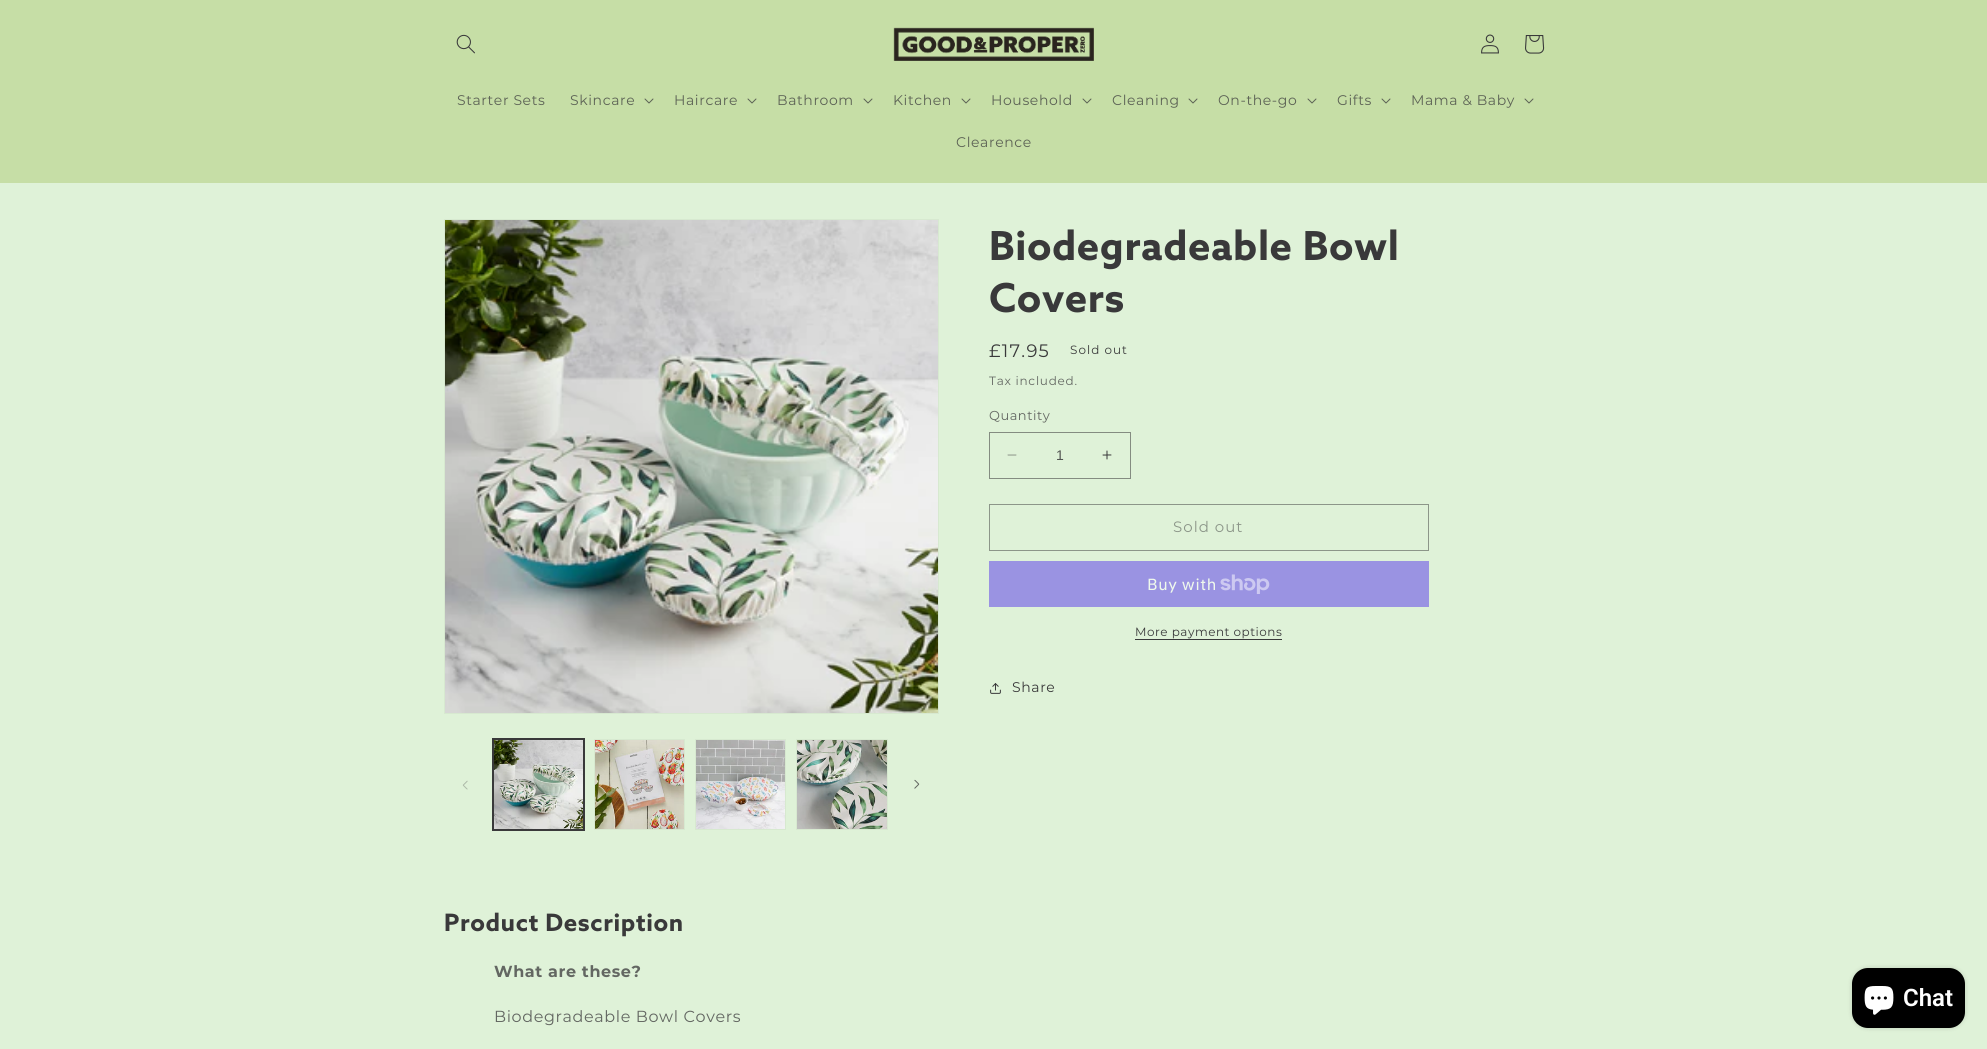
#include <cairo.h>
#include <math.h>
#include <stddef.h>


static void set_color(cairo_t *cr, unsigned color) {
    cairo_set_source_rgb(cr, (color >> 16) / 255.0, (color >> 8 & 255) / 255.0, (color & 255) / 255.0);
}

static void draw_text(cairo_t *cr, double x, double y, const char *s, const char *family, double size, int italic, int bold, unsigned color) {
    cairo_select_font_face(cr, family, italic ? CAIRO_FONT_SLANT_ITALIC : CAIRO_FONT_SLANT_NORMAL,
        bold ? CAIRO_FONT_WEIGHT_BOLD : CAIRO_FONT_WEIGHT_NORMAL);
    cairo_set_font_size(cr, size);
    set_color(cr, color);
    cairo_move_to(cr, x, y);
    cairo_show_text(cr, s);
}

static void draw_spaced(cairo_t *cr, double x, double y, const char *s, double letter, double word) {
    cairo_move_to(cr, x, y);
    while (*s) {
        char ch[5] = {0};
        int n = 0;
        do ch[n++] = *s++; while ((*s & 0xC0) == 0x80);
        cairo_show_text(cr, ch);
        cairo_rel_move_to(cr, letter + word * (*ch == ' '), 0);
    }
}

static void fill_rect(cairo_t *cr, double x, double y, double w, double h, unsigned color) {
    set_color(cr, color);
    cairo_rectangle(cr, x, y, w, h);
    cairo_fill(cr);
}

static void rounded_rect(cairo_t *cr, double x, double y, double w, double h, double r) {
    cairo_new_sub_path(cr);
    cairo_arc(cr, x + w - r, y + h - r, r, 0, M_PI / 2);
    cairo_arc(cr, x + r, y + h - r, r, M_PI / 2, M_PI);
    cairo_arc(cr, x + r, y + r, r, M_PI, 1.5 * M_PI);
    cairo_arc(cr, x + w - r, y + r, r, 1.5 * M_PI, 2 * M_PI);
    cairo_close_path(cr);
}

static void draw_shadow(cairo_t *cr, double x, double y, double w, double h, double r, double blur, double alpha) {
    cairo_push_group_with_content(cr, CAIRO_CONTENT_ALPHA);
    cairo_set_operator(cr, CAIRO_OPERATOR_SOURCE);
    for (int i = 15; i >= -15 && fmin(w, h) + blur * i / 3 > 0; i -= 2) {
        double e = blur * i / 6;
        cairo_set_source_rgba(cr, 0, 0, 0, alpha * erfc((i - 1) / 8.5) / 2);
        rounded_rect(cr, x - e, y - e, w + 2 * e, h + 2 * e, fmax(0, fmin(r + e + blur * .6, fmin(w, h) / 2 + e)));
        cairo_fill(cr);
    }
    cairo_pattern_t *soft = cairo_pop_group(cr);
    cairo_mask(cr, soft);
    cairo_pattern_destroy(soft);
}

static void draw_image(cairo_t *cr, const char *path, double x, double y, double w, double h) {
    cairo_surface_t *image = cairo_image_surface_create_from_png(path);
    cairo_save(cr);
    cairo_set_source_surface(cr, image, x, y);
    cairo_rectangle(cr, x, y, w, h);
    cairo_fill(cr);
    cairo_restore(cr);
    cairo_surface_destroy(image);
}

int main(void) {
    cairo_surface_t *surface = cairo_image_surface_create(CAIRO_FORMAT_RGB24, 1987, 1049);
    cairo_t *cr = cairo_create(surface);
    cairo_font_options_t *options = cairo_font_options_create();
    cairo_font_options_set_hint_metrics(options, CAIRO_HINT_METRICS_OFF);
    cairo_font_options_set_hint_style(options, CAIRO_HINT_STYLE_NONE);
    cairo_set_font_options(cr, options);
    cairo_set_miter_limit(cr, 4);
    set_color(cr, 0xDFF2D8);
    cairo_paint(cr);
    fill_rect(cr, 0, 0, 1987, 183, 0xC6DEA6);
    draw_image(cr, "assets/img1.png", 456, 34, 19, 20);
    draw_image(cr, "assets/img2.png", 893, 27, 201, 34);
    draw_image(cr, "assets/img3.png", 1481, 34, 18, 20);
    draw_image(cr, "assets/img4.png", 1525, 35, 20, 19);
    cairo_select_font_face(cr, "Montserrat", CAIRO_FONT_SLANT_NORMAL, CAIRO_FONT_WEIGHT_NORMAL);
    cairo_set_font_size(cr, 14);
    set_color(cr, 0x5C6255);
    draw_spaced(cr, 457, 105, "Starter Sets", 0.6, 0);
    draw_spaced(cr, 570, 105, "Skincare", 0.6, 0);
    draw_image(cr, "assets/img5.png", 644, 98, 10, 6);
    draw_spaced(cr, 674, 105, "Haircare", 0.6, 0);
    draw_image(cr, "assets/img5.png", 747, 98, 10, 6);
    draw_spaced(cr, 777, 105, "Bathroom", 0.6, 0);
    draw_image(cr, "assets/img5.png", 863, 98, 10, 6);
    draw_spaced(cr, 893, 105, "Kitchen", 0.6, 0);
    draw_image(cr, "assets/img5.png", 961, 98, 10, 6);
    draw_spaced(cr, 991, 105, "Household", 0.6, 0);
    draw_image(cr, "assets/img5.png", 1082, 98, 10, 6);
    draw_spaced(cr, 1112, 105, "Cleaning", 0.6, 0);
    draw_image(cr, "assets/img5.png", 1188, 98, 10, 6);
    draw_spaced(cr, 1218, 105, "On-the-go", 0.6, 0);
    draw_image(cr, "assets/img5.png", 1307, 98, 10, 6);
    draw_spaced(cr, 1337, 105, "Gifts", 0.6, 0);
    draw_image(cr, "assets/img5.png", 1381, 98, 10, 6);
    draw_spaced(cr, 1411, 105, "Mama & Baby", 0.6, 0);
    draw_image(cr, "assets/img5.png", 1524, 98, 10, 6);
    draw_spaced(cr, 956, 147, "Clearence", 0.6, 0);
    cairo_rectangle(cr, 444.5, 219.5, 494, 494);
    set_color(cr, 0xD7E9D0);
    cairo_set_line_width(cr, 1);
    cairo_stroke(cr);
    draw_image(cr, "assets/img6.png", 445, 220, 493, 493);
    draw_image(cr, "assets/img7.png", 462, 780, 6, 10);
    cairo_rectangle(cr, 492.5, 738.5, 92, 92);
    set_color(cr, 0x39393A);
    cairo_stroke(cr);
    cairo_rectangle(cr, 493.5, 739.5, 90, 90);
    cairo_stroke(cr);
    draw_image(cr, "assets/img8.png", 494, 740, 89, 89);
    cairo_rectangle(cr, 594.5, 739.5, 90, 90);
    set_color(cr, 0xD7E9D0);
    cairo_stroke(cr);
    draw_image(cr, "assets/img9.png", 595, 740, 89, 89);
    cairo_rectangle(cr, 695.5, 739.5, 90, 90);
    cairo_stroke(cr);
    draw_image(cr, "assets/img10.png", 696, 740, 89, 89);
    cairo_rectangle(cr, 796.5, 739.5, 91, 90);
    cairo_stroke(cr);
    draw_image(cr, "assets/img11.png", 797, 740, 90, 89);
    draw_image(cr, "assets/img12.png", 914, 779, 6, 10);
    cairo_select_font_face(cr, "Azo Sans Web", CAIRO_FONT_SLANT_NORMAL, CAIRO_FONT_WEIGHT_BOLD);
    cairo_set_font_size(cr, 40);
    set_color(cr, 0x39393A);
    draw_spaced(cr, 989, 260, "Biodegradeable Bowl", 0.6, 0);
    draw_spaced(cr, 989, 312, "Covers", 0.6, 0);
    cairo_select_font_face(cr, "Montserrat", CAIRO_FONT_SLANT_NORMAL, CAIRO_FONT_WEIGHT_NORMAL);
    cairo_set_font_size(cr, 18);
    draw_spaced(cr, 989, 357, "£17.95", 1.25, 0);
    cairo_set_font_size(cr, 12);
    draw_spaced(cr, 1070, 354, "Sold out", 1, 0);
    set_color(cr, 0x636762);
    draw_spaced(cr, 989, 385, "Tax included.", 0.75, 0);
    cairo_set_font_size(cr, 13);
    draw_spaced(cr, 989, 420, "Quantity", 0.5, 0);
    draw_image(cr, "assets/img13.png", 1007, 454, 10, 2);
    draw_image(cr, "assets/img14.png", 1102, 450, 10, 10);
    cairo_rectangle(cr, 989.5, 432.5, 141, 46);
    set_color(cr, 0x848C81);
    cairo_stroke(cr);
    draw_text(cr, 1056, 460, "1", "Liberation Sans", 14, 0, 0, 0x525552);
    cairo_rectangle(cr, 989.5, 504.5, 439, 46);
    set_color(cr, 0x8C9689);
    cairo_stroke(cr);
    cairo_select_font_face(cr, "Montserrat", CAIRO_FONT_SLANT_NORMAL, CAIRO_FONT_WEIGHT_NORMAL);
    cairo_set_font_size(cr, 15);
    draw_spaced(cr, 1173, 532, "Sold out", 1, 0);
    fill_rect(cr, 989, 561, 440, 46, 0x9A93E2);
    cairo_select_font_face(cr, "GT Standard", CAIRO_FONT_SLANT_NORMAL, CAIRO_FONT_WEIGHT_NORMAL);
    cairo_set_font_size(cr, 16);
    set_color(cr, 0xEFF9EC);
    draw_spaced(cr, 1147, 590, "Buy with", 0.6, 0);
    draw_image(cr, "assets/img15.png", 1220, 574, 50, 20);
    cairo_select_font_face(cr, "Montserrat", CAIRO_FONT_SLANT_NORMAL, CAIRO_FONT_WEIGHT_NORMAL);
    cairo_set_font_size(cr, 12);
    set_color(cr, 0x39393A);
    draw_spaced(cr, 1135, 636, "More payment options", 0.5, 0);
    fill_rect(cr, 1135, 639, 147, 1, 0x39393A);
    draw_image(cr, "assets/img16.png", 990, 683, 11, 11);
    cairo_set_font_size(cr, 14);
    draw_spaced(cr, 1012, 692, "Share", 0.6, 0);
    cairo_select_font_face(cr, "Azo Sans Web", CAIRO_FONT_SLANT_NORMAL, CAIRO_FONT_WEIGHT_BOLD);
    cairo_set_font_size(cr, 24);
    draw_spaced(cr, 444, 931, "Product Description", 0.6, 0);
    cairo_select_font_face(cr, "Montserrat", CAIRO_FONT_SLANT_NORMAL, CAIRO_FONT_WEIGHT_BOLD);
    cairo_set_font_size(cr, 16);
    set_color(cr, 0x636762);
    draw_spaced(cr, 494, 977, "What are these?", 0.6, 0);
    cairo_select_font_face(cr, "Montserrat", CAIRO_FONT_SLANT_NORMAL, CAIRO_FONT_WEIGHT_NORMAL);
    draw_spaced(cr, 494, 1022, "Biodegradeable Bowl Covers", 0.6, 0);
    set_color(cr, 0x000000);
    draw_shadow(cr, 1852, 968, 113, 60, 16, 2.5, 0.15);
    set_color(cr, 0x000000);
    rounded_rect(cr, 1852, 968, 113, 60, 16);
    cairo_fill(cr);
    draw_image(cr, "assets/img17.png", 1864, 986, 30, 29);
    draw_text(cr, 1903, 1006, "Chat", "Roboto SemiBold", 24, 0, 0, 0xFFFFFF);
    cairo_surface_write_to_png(surface, "output.png");
    cairo_font_options_destroy(options);
    cairo_destroy(cr);
    cairo_surface_destroy(surface);
    return 0;
}
